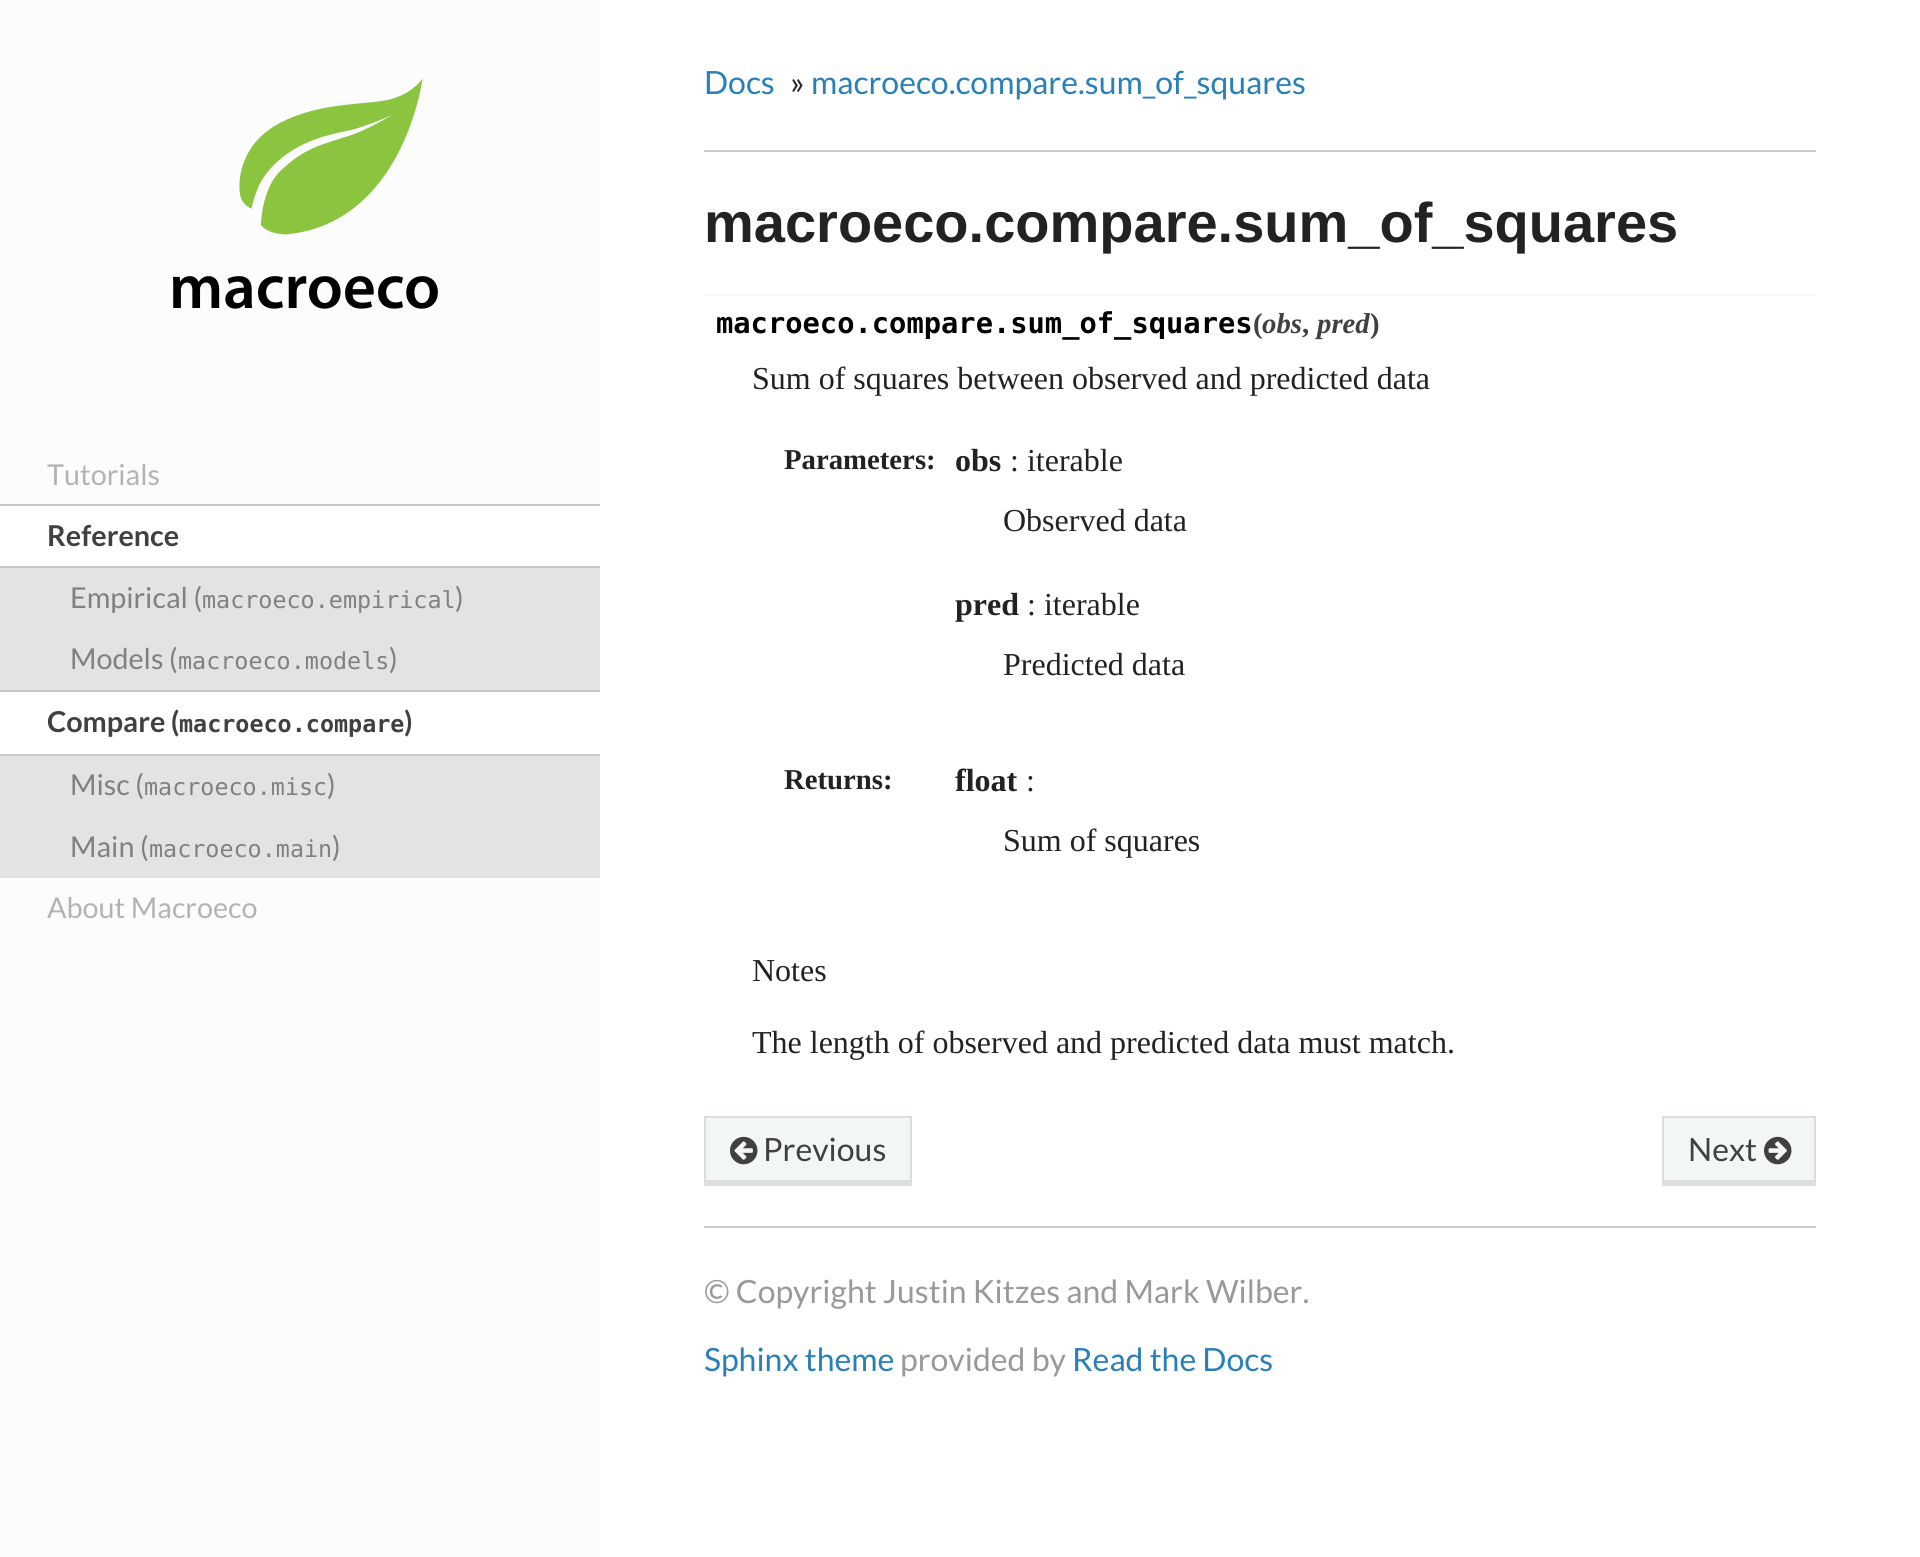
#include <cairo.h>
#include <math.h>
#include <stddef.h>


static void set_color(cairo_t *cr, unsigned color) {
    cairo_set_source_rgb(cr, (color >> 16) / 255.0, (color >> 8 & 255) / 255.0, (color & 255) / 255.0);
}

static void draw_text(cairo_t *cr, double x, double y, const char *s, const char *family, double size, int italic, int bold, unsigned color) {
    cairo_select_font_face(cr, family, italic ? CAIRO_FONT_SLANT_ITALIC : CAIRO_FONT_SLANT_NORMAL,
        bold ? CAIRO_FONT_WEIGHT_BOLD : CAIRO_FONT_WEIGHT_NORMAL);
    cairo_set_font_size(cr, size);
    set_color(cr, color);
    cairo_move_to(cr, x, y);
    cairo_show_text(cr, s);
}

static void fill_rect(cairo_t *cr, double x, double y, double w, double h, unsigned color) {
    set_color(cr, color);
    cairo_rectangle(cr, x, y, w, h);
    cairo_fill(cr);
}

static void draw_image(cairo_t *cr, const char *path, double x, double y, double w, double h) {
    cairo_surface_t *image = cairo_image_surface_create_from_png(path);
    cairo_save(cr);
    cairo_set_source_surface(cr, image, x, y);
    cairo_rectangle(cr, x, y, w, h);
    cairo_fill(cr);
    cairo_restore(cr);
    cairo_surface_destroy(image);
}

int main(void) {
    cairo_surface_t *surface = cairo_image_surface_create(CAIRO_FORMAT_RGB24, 1920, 1557);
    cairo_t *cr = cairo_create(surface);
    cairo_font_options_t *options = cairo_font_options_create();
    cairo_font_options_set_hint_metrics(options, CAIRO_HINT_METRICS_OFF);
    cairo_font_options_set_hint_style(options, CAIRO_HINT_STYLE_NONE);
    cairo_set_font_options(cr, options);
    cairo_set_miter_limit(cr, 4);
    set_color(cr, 0xFCFCFC);
    cairo_paint(cr);
    draw_image(cr, "assets/img1.png", 173, 78, 265, 231);
    draw_text(cr, 47, 485, "Tutorials", "Lato", 28.75, 0, 0, 0xB3B3B3);
    fill_rect(cr, 0, 568, 600, 310, 0xE3E3E3);
    fill_rect(cr, 0, 506, 600, 60, 0xFFFFFF);
    fill_rect(cr, 0, 504, 600, 2, 0xC9C9C9);
    fill_rect(cr, 0, 566, 600, 2, 0xC9C9C9);
    draw_text(cr, 47, 546, "Reference", "Lato", 28.75, 0, 1, 0x404040);
    draw_text(cr, 70, 608, "Empirical (", "Lato", 28.75, 0, 0, 0x808080);
    draw_text(cr, 202, 608, "macroeco.empirical", "DejaVu Sans Mono", 23.4, 0, 0, 0x808080);
    draw_text(cr, 455, 608, ")", "Lato", 28.75, 0, 0, 0x808080);
    draw_text(cr, 70, 669, "Models (", "Lato", 28.75, 0, 0, 0x808080);
    draw_text(cr, 178, 669, "macroeco.models", "DejaVu Sans Mono", 23.4, 0, 0, 0x808080);
    draw_text(cr, 389, 669, ")", "Lato", 28.75, 0, 0, 0x808080);
    fill_rect(cr, 0, 692, 600, 62, 0xFFFFFF);
    fill_rect(cr, 0, 690, 600, 2, 0xC9C9C9);
    fill_rect(cr, 0, 754, 600, 2, 0xC9C9C9);
    draw_text(cr, 47, 732, "Compare (", "Lato", 28.75, 0, 1, 0x404040);
    draw_text(cr, 179, 732, "macroeco.compare", "DejaVu Sans Mono", 23.4, 0, 1, 0x404040);
    draw_text(cr, 404, 732, ")", "Lato", 28.75, 0, 1, 0x404040);
    draw_text(cr, 70, 795, "Misc (", "Lato", 28.75, 0, 0, 0x808080);
    draw_text(cr, 144, 795, "macroeco.misc", "DejaVu Sans Mono", 23.4, 0, 0, 0x808080);
    draw_text(cr, 327, 795, ")", "Lato", 28.75, 0, 0, 0x808080);
    draw_text(cr, 70, 857, "Main (", "Lato", 28.75, 0, 0, 0x808080);
    draw_text(cr, 149, 857, "macroeco.main", "DejaVu Sans Mono", 23.4, 0, 0, 0x808080);
    draw_text(cr, 332, 857, ")", "Lato", 28.75, 0, 0, 0x808080);
    draw_text(cr, 47, 918, "About Macroeco", "Lato", 28.75, 0, 0, 0xB3B3B3);
    fill_rect(cr, 600, 0, 1320, 1557, 0xFFFFFF);
    draw_text(cr, 704, 94, "Docs", "Lato", 32, 0, 0, 0x2980B9);
    draw_text(cr, 790, 94, "»", "Lato", 32, 0, 0, 0x222222);
    draw_text(cr, 811, 94, "macroeco.compare.sum_of_squares", "Lato", 32, 0, 0, 0x2980B9);
    fill_rect(cr, 704, 150, 1112, 2, 0xCCCCCC);
    draw_text(cr, 704, 242, "macroeco.compare.sum_of_squares", "Liberation Sans", 56, 0, 1, 0x222222);
    fill_rect(cr, 704, 294, 1112, 2, 0xF8F8F8);
    draw_text(cr, 716, 333, "macroeco.compare.sum_of_squares", "DejaVu Sans Mono", 28.75, 0, 1, 0x000000);
    draw_text(cr, 1253, 333, "(", "Liberation Serif", 28.75, 0, 1, 0x404040);
    draw_text(cr, 1262, 333, "obs", "Liberation Serif", 28.75, 1, 1, 0x404040);
    draw_text(cr, 1302, 333, ",", "Liberation Serif", 28.75, 0, 1, 0x404040);
    draw_text(cr, 1317, 333, "pred", "Liberation Serif", 28.75, 1, 1, 0x404040);
    draw_text(cr, 1370, 333, ")", "Liberation Serif", 28.75, 0, 1, 0x404040);
    draw_text(cr, 752, 389, "Sum of squares between observed and predicted data", "Liberation Serif", 32, 0, 0, 0x222222);
    draw_text(cr, 784, 469, "Parameters:", "Liberation Serif", 28.75, 0, 1, 0x222222);
    draw_text(cr, 955, 471, "obs", "Liberation Serif", 32, 0, 1, 0x222222);
    draw_text(cr, 1010, 471, ": iterable", "Liberation Serif", 32, 0, 0, 0x222222);
    draw_text(cr, 1003, 531, "Observed data", "Liberation Serif", 32, 0, 0, 0x222222);
    draw_text(cr, 955, 615, "pred", "Liberation Serif", 32, 0, 1, 0x222222);
    draw_text(cr, 1027, 615, ": iterable", "Liberation Serif", 32, 0, 0, 0x222222);
    draw_text(cr, 1003, 675, "Predicted data", "Liberation Serif", 32, 0, 0, 0x222222);
    draw_text(cr, 784, 789, "Returns:", "Liberation Serif", 28.75, 0, 1, 0x222222);
    draw_text(cr, 955, 791, "float", "Liberation Serif", 32, 0, 1, 0x222222);
    draw_text(cr, 1026, 791, ":", "Liberation Serif", 32, 0, 0, 0x222222);
    draw_text(cr, 1003, 851, "Sum of squares", "Liberation Serif", 32, 0, 0, 0x222222);
    draw_text(cr, 752, 981, "Notes", "Liberation Serif", 32, 0, 0, 0x222222);
    draw_text(cr, 752, 1053, "The length of observed and predicted data must match.", "Liberation Serif", 32, 0, 0, 0x222222);
    fill_rect(cr, 704, 1116, 208, 70, 0xF3F6F6);
    set_color(cr, 0xDBDDDD);
    cairo_new_path(cr);
    cairo_move_to(cr, 704, 1116);
    cairo_line_to(cr, 912, 1116);
    cairo_line_to(cr, 910, 1118);
    cairo_line_to(cr, 706, 1118);
    cairo_close_path(cr);
    cairo_fill(cr);
    cairo_set_source_rgba(cr, 0, 0, 0, 0.1);
    cairo_new_path(cr);
    cairo_move_to(cr, 912, 1116);
    cairo_line_to(cr, 912, 1186);
    cairo_line_to(cr, 910, 1180);
    cairo_line_to(cr, 910, 1118);
    cairo_close_path(cr);
    cairo_fill(cr);
    cairo_new_path(cr);
    cairo_move_to(cr, 912, 1186);
    cairo_line_to(cr, 704, 1186);
    cairo_line_to(cr, 706, 1180);
    cairo_line_to(cr, 910, 1180);
    cairo_close_path(cr);
    cairo_fill(cr);
    cairo_new_path(cr);
    cairo_move_to(cr, 704, 1186);
    cairo_line_to(cr, 704, 1116);
    cairo_line_to(cr, 706, 1118);
    cairo_line_to(cr, 706, 1180);
    cairo_close_path(cr);
    cairo_fill(cr);
    draw_image(cr, "assets/img2.png", 730, 1136, 28, 29);
    draw_text(cr, 763, 1161, "Previous", "Lato", 32, 0, 0, 0x404040);
    fill_rect(cr, 1662, 1116, 154, 70, 0xF3F6F6);
    set_color(cr, 0xDBDDDD);
    cairo_new_path(cr);
    cairo_move_to(cr, 1662, 1116);
    cairo_line_to(cr, 1816, 1116);
    cairo_line_to(cr, 1814, 1118);
    cairo_line_to(cr, 1664, 1118);
    cairo_close_path(cr);
    cairo_fill(cr);
    cairo_set_source_rgba(cr, 0, 0, 0, 0.1);
    cairo_new_path(cr);
    cairo_move_to(cr, 1816, 1116);
    cairo_line_to(cr, 1816, 1186);
    cairo_line_to(cr, 1814, 1180);
    cairo_line_to(cr, 1814, 1118);
    cairo_close_path(cr);
    cairo_fill(cr);
    cairo_new_path(cr);
    cairo_move_to(cr, 1816, 1186);
    cairo_line_to(cr, 1662, 1186);
    cairo_line_to(cr, 1664, 1180);
    cairo_line_to(cr, 1814, 1180);
    cairo_close_path(cr);
    cairo_fill(cr);
    cairo_new_path(cr);
    cairo_move_to(cr, 1662, 1186);
    cairo_line_to(cr, 1662, 1116);
    cairo_line_to(cr, 1664, 1118);
    cairo_line_to(cr, 1664, 1180);
    cairo_close_path(cr);
    cairo_fill(cr);
    draw_text(cr, 1688, 1161, "Next", "Lato", 32, 0, 0, 0x404040);
    draw_image(cr, "assets/img3.png", 1764, 1136, 28, 29);
    fill_rect(cr, 704, 1226, 1112, 2, 0xCCCCCC);
    draw_text(cr, 704, 1303, "© Copyright Justin Kitzes and Mark Wilber.", "Lato", 32, 0, 0, 0x999999);
    draw_text(cr, 704, 1371, "Sphinx theme", "Lato", 32, 0, 0, 0x2980B9);
    draw_text(cr, 900, 1371, "provided by", "Lato", 32, 0, 0, 0x999999);
    draw_text(cr, 1072, 1371, "Read the Docs", "Lato", 32, 0, 0, 0x2980B9);
    cairo_surface_write_to_png(surface, "output.png");
    cairo_font_options_destroy(options);
    cairo_destroy(cr);
    cairo_surface_destroy(surface);
    return 0;
}
